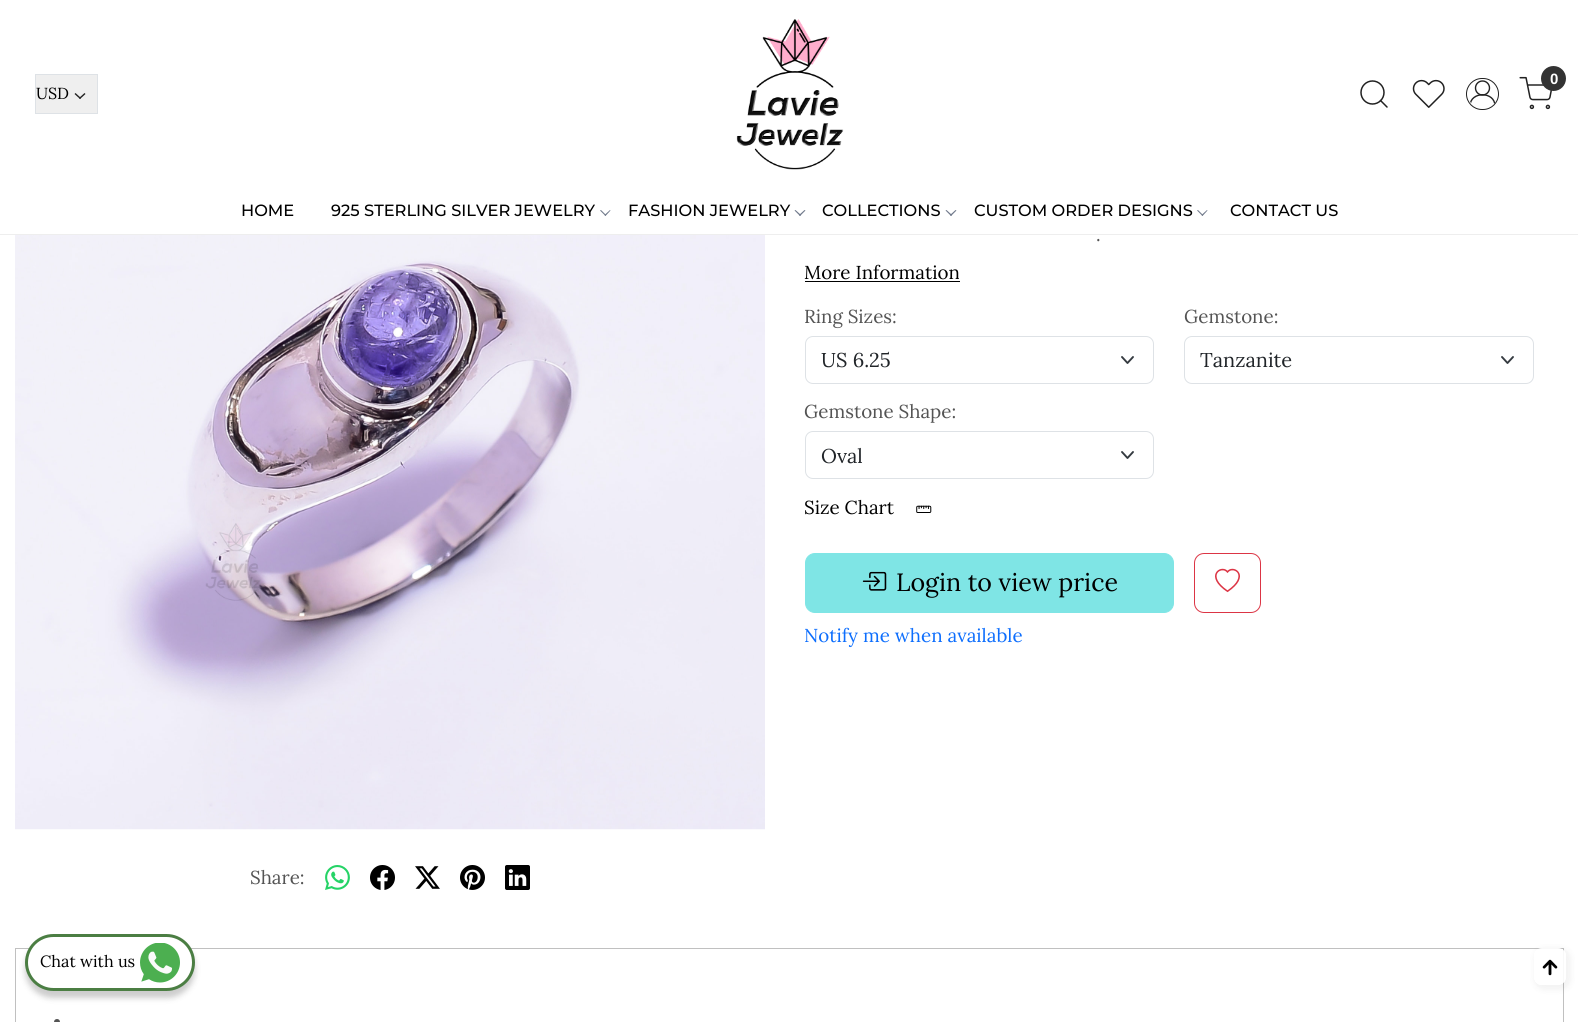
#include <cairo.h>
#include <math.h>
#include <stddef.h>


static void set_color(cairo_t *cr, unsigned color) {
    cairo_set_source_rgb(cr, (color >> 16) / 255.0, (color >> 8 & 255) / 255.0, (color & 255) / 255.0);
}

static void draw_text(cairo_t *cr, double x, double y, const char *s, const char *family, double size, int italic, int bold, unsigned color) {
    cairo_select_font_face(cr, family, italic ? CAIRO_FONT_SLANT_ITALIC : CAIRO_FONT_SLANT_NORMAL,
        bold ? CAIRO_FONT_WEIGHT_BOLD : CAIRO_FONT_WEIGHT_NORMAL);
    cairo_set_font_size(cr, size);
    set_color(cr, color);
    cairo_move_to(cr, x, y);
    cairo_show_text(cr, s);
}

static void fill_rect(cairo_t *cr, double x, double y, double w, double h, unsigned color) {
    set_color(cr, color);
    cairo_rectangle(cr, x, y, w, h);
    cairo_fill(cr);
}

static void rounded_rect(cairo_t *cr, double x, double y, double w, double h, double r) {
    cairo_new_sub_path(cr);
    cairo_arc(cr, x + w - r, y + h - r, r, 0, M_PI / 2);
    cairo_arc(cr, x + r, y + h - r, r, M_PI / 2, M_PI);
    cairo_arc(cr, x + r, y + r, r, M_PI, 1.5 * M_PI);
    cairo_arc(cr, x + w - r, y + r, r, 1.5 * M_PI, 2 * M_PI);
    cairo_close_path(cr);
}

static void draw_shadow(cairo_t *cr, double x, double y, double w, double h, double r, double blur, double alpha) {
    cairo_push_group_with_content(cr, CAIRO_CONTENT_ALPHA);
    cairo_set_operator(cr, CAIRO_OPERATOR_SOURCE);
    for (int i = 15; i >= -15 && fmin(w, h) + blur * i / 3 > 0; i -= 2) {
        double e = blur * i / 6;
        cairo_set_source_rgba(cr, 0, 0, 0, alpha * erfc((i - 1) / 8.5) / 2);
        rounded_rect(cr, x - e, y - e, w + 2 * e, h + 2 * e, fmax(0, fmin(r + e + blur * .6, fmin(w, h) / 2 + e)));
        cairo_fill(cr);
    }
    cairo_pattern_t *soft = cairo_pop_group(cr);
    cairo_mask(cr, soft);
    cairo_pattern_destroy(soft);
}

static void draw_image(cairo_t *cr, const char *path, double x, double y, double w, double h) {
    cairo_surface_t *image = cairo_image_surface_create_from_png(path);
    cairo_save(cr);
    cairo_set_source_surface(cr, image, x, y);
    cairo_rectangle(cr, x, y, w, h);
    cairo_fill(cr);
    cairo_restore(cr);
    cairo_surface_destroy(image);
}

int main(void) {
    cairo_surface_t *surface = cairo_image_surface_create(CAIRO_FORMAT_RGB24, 1578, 1022);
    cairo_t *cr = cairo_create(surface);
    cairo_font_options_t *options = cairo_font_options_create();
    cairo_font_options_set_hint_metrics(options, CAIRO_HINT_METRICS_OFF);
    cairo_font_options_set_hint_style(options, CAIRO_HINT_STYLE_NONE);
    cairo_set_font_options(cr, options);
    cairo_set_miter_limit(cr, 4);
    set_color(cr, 0xFFFFFF);
    cairo_paint(cr);
    fill_rect(cr, 0, 234, 1578, 1, 0xEEEEEE);
    draw_image(cr, "assets/img1.png", 736, 19, 108, 151);
    cairo_arc(cr, 1372.5, 92.5, 11.5, 0, 2 * M_PI);
    set_color(cr, 0x212121);
    cairo_set_line_width(cr, 1.5);
    cairo_stroke(cr);
    cairo_new_path(cr);
    cairo_move_to(cr, 1387, 107);
    cairo_line_to(cr, 1380.5, 100.5);
    cairo_set_line_cap(cr, CAIRO_LINE_CAP_ROUND);
    cairo_set_line_join(cr, CAIRO_LINE_JOIN_ROUND);
    cairo_stroke(cr);
    draw_image(cr, "assets/img2.png", 1412, 79, 33, 29);
    rounded_rect(cr, 1466.5, 78.5, 32, 31, 15.5);
    cairo_set_line_width(cr, 1);
    cairo_set_line_cap(cr, CAIRO_LINE_CAP_BUTT);
    cairo_set_line_join(cr, CAIRO_LINE_JOIN_MITER);
    cairo_stroke(cr);
    cairo_save(cr);
    rounded_rect(cr, 1468, 79, 30, 30, 15);
    cairo_clip(cr);
    cairo_new_path(cr);
    cairo_move_to(cr, 1470, 106);
    cairo_curve_to(cr, 1470, 91, 1495, 91, 1495, 106);
    cairo_set_line_width(cr, 1.4);
    cairo_set_line_cap(cr, CAIRO_LINE_CAP_SQUARE);
    cairo_stroke(cr);
    cairo_restore(cr);
    cairo_arc(cr, 1482.5, 88, 7, 0, 2 * M_PI);
    cairo_set_line_width(cr, 1.4);
    cairo_stroke(cr);
    draw_image(cr, "assets/img3.png", 1519, 76, 34, 34);
    set_color(cr, 0x333333);
    cairo_arc(cr, 1553.5, 78.5, 12.5, 0, 2 * M_PI);
    cairo_fill(cr);
    draw_text(cr, 1550, 84, "0", "Liberation Sans", 15, 0, 1, 0xFFFFFF);
    set_color(cr, 0xEFEFEF);
    cairo_rectangle(cr, 35.5, 74.5, 62, 39);
    cairo_fill_preserve(cr);
    set_color(cr, 0xDEE2E6);
    cairo_set_line_width(cr, 1);
    cairo_stroke(cr);
    draw_text(cr, 36, 99, "USD", "Lora", 16, 0, 0, 0x000000);
    set_color(cr, 0x222222);
    cairo_new_path(cr);
    cairo_move_to(cr, 84.5, 93);
    cairo_line_to(cr, 85.5, 94);
    cairo_line_to(cr, 80, 99);
    cairo_line_to(cr, 79, 98);
    cairo_close_path(cr);
    cairo_fill(cr);
    cairo_new_path(cr);
    cairo_move_to(cr, 75.5, 93);
    cairo_line_to(cr, 81, 98);
    cairo_line_to(cr, 80, 99);
    cairo_line_to(cr, 74.5, 94);
    cairo_close_path(cr);
    cairo_fill(cr);
    draw_text(cr, 241, 216, "HOME", "Montserrat Medium", 16.25, 0, 0, 0x000000);
    draw_text(cr, 331, 216, "925 STERLING SILVER JEWELRY", "Montserrat Medium", 16.25, 0, 0, 0x000000);
    set_color(cr, 0x70798B);
    cairo_new_path(cr);
    cairo_move_to(cr, 610, 210);
    cairo_line_to(cr, 610.5, 210.5);
    cairo_line_to(cr, 605.5, 216);
    cairo_line_to(cr, 604.5, 215);
    cairo_close_path(cr);
    cairo_fill(cr);
    cairo_new_path(cr);
    cairo_move_to(cr, 601, 210);
    cairo_line_to(cr, 606, 215);
    cairo_line_to(cr, 605.5, 216);
    cairo_line_to(cr, 600, 210.5);
    cairo_close_path(cr);
    cairo_fill(cr);
    draw_text(cr, 628, 216, "FASHION JEWELRY", "Montserrat Medium", 16.25, 0, 0, 0x000000);
    set_color(cr, 0x70798B);
    cairo_new_path(cr);
    cairo_move_to(cr, 804.5, 210);
    cairo_line_to(cr, 805.5, 210.5);
    cairo_line_to(cr, 800, 216);
    cairo_line_to(cr, 799, 215);
    cairo_close_path(cr);
    cairo_fill(cr);
    cairo_new_path(cr);
    cairo_move_to(cr, 795.5, 210);
    cairo_line_to(cr, 801, 215);
    cairo_line_to(cr, 800, 216);
    cairo_line_to(cr, 794.5, 210.5);
    cairo_close_path(cr);
    cairo_fill(cr);
    draw_text(cr, 822, 216, "COLLECTIONS", "Montserrat Medium", 16.25, 0, 0, 0x000000);
    set_color(cr, 0x70798B);
    cairo_new_path(cr);
    cairo_move_to(cr, 955.5, 210);
    cairo_line_to(cr, 956.5, 210.5);
    cairo_line_to(cr, 951, 216);
    cairo_line_to(cr, 950, 215);
    cairo_close_path(cr);
    cairo_fill(cr);
    cairo_new_path(cr);
    cairo_move_to(cr, 946.5, 210);
    cairo_line_to(cr, 952, 215);
    cairo_line_to(cr, 951, 216);
    cairo_line_to(cr, 945.5, 210.5);
    cairo_close_path(cr);
    cairo_fill(cr);
    draw_text(cr, 974, 216, "CUSTOM ORDER DESIGNS", "Montserrat Medium", 16.25, 0, 0, 0x000000);
    set_color(cr, 0x70798B);
    cairo_new_path(cr);
    cairo_move_to(cr, 1207, 210);
    cairo_line_to(cr, 1207.5, 210.5);
    cairo_line_to(cr, 1202.5, 216);
    cairo_line_to(cr, 1201.5, 215);
    cairo_close_path(cr);
    cairo_fill(cr);
    cairo_new_path(cr);
    cairo_move_to(cr, 1198, 210);
    cairo_line_to(cr, 1203, 215);
    cairo_line_to(cr, 1202.5, 216);
    cairo_line_to(cr, 1197, 210.5);
    cairo_close_path(cr);
    cairo_fill(cr);
    draw_text(cr, 1230, 216, "CONTACT US", "Montserrat Medium", 16.25, 0, 0, 0x000000);
    draw_text(cr, 1096, 241, ".", "Lora", 18.75, 0, 0, 0x545454);
    draw_text(cr, 804, 279, "More Information", "Lora", 18.75, 0, 0, 0x000000);
    fill_rect(cr, 805, 281, 155, 1, 0x000000);
    draw_text(cr, 804, 323, "Ring Sizes:", "Lora", 18.75, 0, 0, 0x545454);
    cairo_new_path(cr);
    cairo_move_to(cr, 1122, 357);
    cairo_line_to(cr, 1127.5, 363);
    cairo_line_to(cr, 1133, 357);
    set_color(cr, 0x343A40);
    cairo_set_line_width(cr, 1.9);
    cairo_set_line_cap(cr, CAIRO_LINE_CAP_ROUND);
    cairo_set_line_join(cr, CAIRO_LINE_JOIN_ROUND);
    cairo_stroke(cr);
    rounded_rect(cr, 805.5, 336.5, 348, 47, 7.5);
    set_color(cr, 0xDEE2E6);
    cairo_set_line_width(cr, 1);
    cairo_set_line_cap(cr, CAIRO_LINE_CAP_BUTT);
    cairo_set_line_join(cr, CAIRO_LINE_JOIN_MITER);
    cairo_stroke(cr);
    draw_text(cr, 821, 367, "US 6.25", "Lora", 20, 0, 0, 0x212529);
    draw_text(cr, 1184, 323, "Gemstone:", "Lora", 18.75, 0, 0, 0x545454);
    cairo_new_path(cr);
    cairo_move_to(cr, 1502, 357);
    cairo_line_to(cr, 1507.5, 363);
    cairo_line_to(cr, 1513, 357);
    set_color(cr, 0x343A40);
    cairo_set_line_width(cr, 1.9);
    cairo_set_line_cap(cr, CAIRO_LINE_CAP_ROUND);
    cairo_set_line_join(cr, CAIRO_LINE_JOIN_ROUND);
    cairo_stroke(cr);
    rounded_rect(cr, 1184.5, 336.5, 349, 47, 7.5);
    set_color(cr, 0xDEE2E6);
    cairo_set_line_width(cr, 1);
    cairo_set_line_cap(cr, CAIRO_LINE_CAP_BUTT);
    cairo_set_line_join(cr, CAIRO_LINE_JOIN_MITER);
    cairo_stroke(cr);
    draw_text(cr, 1200, 367, "Tanzanite", "Lora", 20, 0, 0, 0x212529);
    draw_text(cr, 804, 418, "Gemstone Shape:", "Lora", 18.75, 0, 0, 0x545454);
    cairo_new_path(cr);
    cairo_move_to(cr, 1122, 452);
    cairo_line_to(cr, 1127.5, 458);
    cairo_line_to(cr, 1133, 452);
    set_color(cr, 0x343A40);
    cairo_set_line_width(cr, 1.9);
    cairo_set_line_cap(cr, CAIRO_LINE_CAP_ROUND);
    cairo_set_line_join(cr, CAIRO_LINE_JOIN_ROUND);
    cairo_stroke(cr);
    rounded_rect(cr, 805.5, 431.5, 348, 47, 7.5);
    set_color(cr, 0xDEE2E6);
    cairo_set_line_width(cr, 1);
    cairo_set_line_cap(cr, CAIRO_LINE_CAP_BUTT);
    cairo_set_line_join(cr, CAIRO_LINE_JOIN_MITER);
    cairo_stroke(cr);
    draw_text(cr, 821, 463, "Oval", "Lora", 20, 0, 0, 0x212529);
    draw_text(cr, 804, 514, "Size Chart", "Lora", 18.75, 0, 0, 0x000000);
    draw_image(cr, "assets/img4.png", 916, 505, 16, 8);
    set_color(cr, 0x7FE5E5);
    rounded_rect(cr, 805.5, 553.5, 368, 59, 9.5);
    cairo_fill_preserve(cr);
    cairo_stroke(cr);
    draw_image(cr, "assets/img5.png", 862, 571, 25, 20);
    draw_text(cr, 896, 591, "Login to view price", "Lora", 25, 0, 0, 0x000000);
    rounded_rect(cr, 1194.5, 553.5, 66, 59, 9.5);
    set_color(cr, 0xDC3545);
    cairo_stroke(cr);
    draw_image(cr, "assets/img6.png", 1215, 568, 25, 25);
    draw_text(cr, 804, 642, "Notify me when available", "Lora", 18.75, 0, 0, 0x0D6EFD);
    draw_image(cr, "assets/img7.png", 15, 235, 750, 595);
    draw_text(cr, 250, 884, "Share:", "Lora", 18.75, 0, 0, 0x545454);
    draw_image(cr, "assets/img8.png", 325, 865, 25, 25);
    draw_image(cr, "assets/img9.png", 370, 865, 25, 25);
    draw_image(cr, "assets/img10.png", 415, 866, 25, 23);
    draw_image(cr, "assets/img11.png", 460, 865, 25, 25);
    draw_image(cr, "assets/img12.png", 505, 865, 25, 25);
    cairo_rectangle(cr, 15.5, 948.5, 1548, 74);
    set_color(cr, 0xC0C0C0);
    cairo_stroke(cr);
    set_color(cr, 0x545454);
    cairo_arc(cr, 57, 1022, 3, 0, 2 * M_PI);
    cairo_fill(cr);
    set_color(cr, 0x000000);
    draw_shadow(cr, 25, 940, 170, 58, 29, 3, 0.2);
    set_color(cr, 0xFFFFFF);
    rounded_rect(cr, 26.5, 935.5, 167, 54, 27);
    cairo_fill_preserve(cr);
    set_color(cr, 0x4B7E43);
    cairo_set_line_width(cr, 3);
    cairo_stroke(cr);
    draw_text(cr, 40, 967, "Chat with us", "Lora", 16.25, 0, 0, 0x000000);
    draw_image(cr, "assets/img13.png", 140, 943, 40, 40);
    cairo_save(cr);
    cairo_set_fill_rule(cr, CAIRO_FILL_RULE_EVEN_ODD);
    cairo_new_path(cr);
    cairo_move_to(cr, 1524, 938);
    cairo_line_to(cr, 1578, 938);
    cairo_line_to(cr, 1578, 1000);
    cairo_line_to(cr, 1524, 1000);
    cairo_close_path(cr);
    cairo_move_to(cr, 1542, 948);
    cairo_line_to(cr, 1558, 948);
    cairo_curve_to(cr, 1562.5, 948, 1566, 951.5, 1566, 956);
    cairo_line_to(cr, 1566, 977);
    cairo_curve_to(cr, 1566, 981.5, 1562.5, 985, 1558, 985);
    cairo_line_to(cr, 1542, 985);
    cairo_curve_to(cr, 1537.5, 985, 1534, 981.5, 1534, 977);
    cairo_line_to(cr, 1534, 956);
    cairo_curve_to(cr, 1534, 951.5, 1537.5, 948, 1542, 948);
    cairo_close_path(cr);
    cairo_clip(cr);
    set_color(cr, 0x000000);
    draw_shadow(cr, 1534, 948, 37, 42, 10, 3, 0.05);
    cairo_restore(cr);
    cairo_set_source_rgba(cr, 1, 1, 1, 0.9);
    rounded_rect(cr, 1534, 948, 32, 37, 8);
    cairo_fill(cr);
    draw_image(cr, "assets/img14.png", 1542, 959, 16, 17);
    cairo_surface_write_to_png(surface, "output.png");
    cairo_font_options_destroy(options);
    cairo_destroy(cr);
    cairo_surface_destroy(surface);
    return 0;
}
